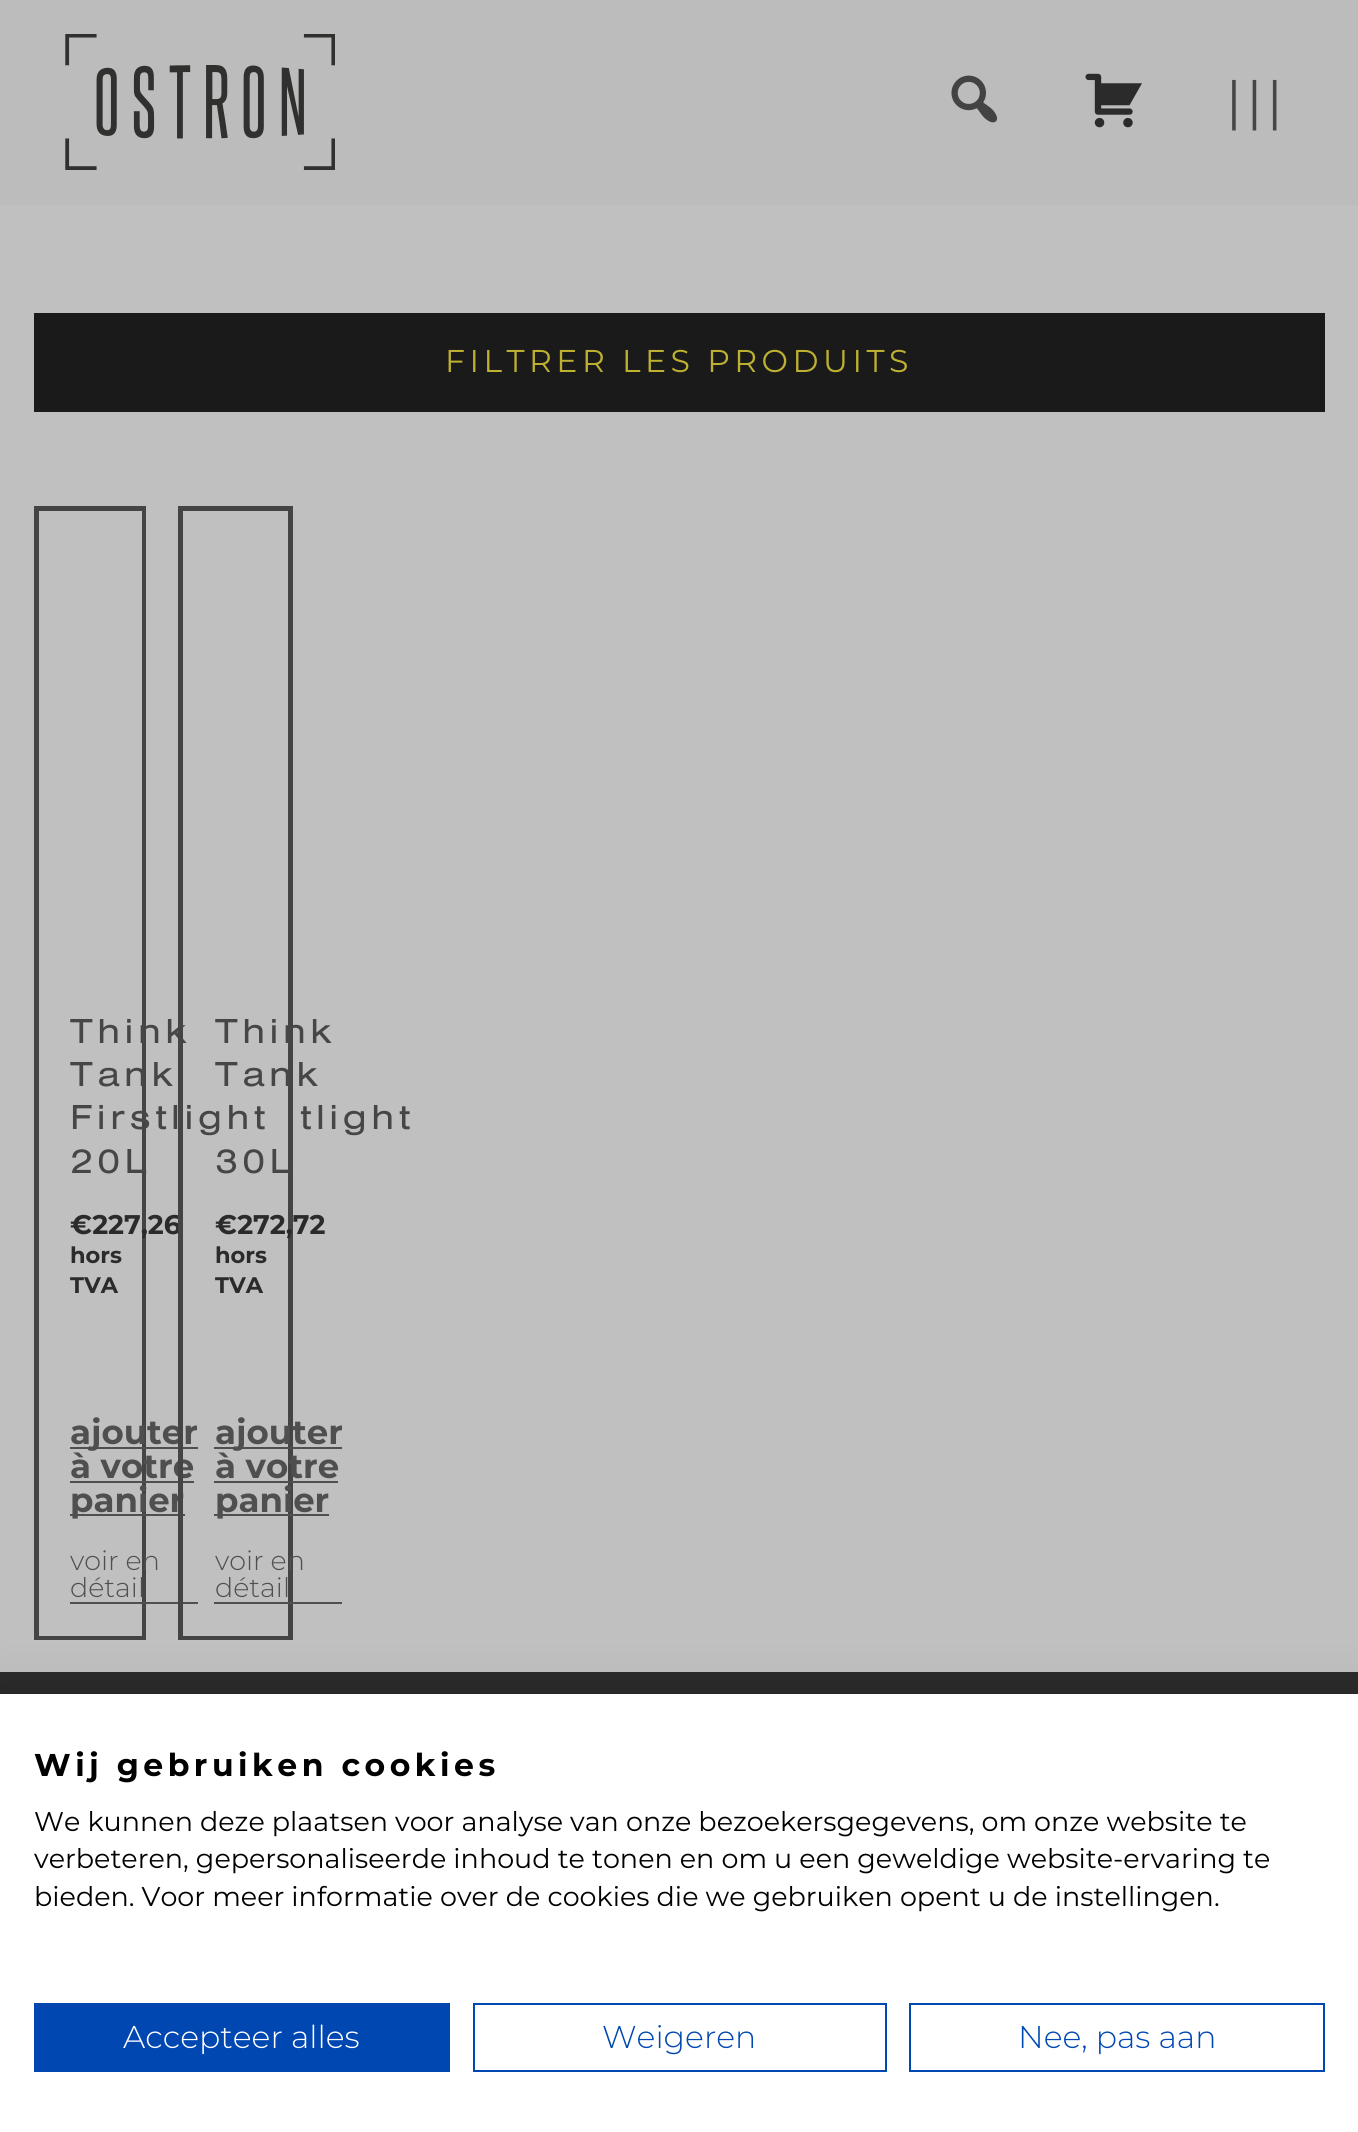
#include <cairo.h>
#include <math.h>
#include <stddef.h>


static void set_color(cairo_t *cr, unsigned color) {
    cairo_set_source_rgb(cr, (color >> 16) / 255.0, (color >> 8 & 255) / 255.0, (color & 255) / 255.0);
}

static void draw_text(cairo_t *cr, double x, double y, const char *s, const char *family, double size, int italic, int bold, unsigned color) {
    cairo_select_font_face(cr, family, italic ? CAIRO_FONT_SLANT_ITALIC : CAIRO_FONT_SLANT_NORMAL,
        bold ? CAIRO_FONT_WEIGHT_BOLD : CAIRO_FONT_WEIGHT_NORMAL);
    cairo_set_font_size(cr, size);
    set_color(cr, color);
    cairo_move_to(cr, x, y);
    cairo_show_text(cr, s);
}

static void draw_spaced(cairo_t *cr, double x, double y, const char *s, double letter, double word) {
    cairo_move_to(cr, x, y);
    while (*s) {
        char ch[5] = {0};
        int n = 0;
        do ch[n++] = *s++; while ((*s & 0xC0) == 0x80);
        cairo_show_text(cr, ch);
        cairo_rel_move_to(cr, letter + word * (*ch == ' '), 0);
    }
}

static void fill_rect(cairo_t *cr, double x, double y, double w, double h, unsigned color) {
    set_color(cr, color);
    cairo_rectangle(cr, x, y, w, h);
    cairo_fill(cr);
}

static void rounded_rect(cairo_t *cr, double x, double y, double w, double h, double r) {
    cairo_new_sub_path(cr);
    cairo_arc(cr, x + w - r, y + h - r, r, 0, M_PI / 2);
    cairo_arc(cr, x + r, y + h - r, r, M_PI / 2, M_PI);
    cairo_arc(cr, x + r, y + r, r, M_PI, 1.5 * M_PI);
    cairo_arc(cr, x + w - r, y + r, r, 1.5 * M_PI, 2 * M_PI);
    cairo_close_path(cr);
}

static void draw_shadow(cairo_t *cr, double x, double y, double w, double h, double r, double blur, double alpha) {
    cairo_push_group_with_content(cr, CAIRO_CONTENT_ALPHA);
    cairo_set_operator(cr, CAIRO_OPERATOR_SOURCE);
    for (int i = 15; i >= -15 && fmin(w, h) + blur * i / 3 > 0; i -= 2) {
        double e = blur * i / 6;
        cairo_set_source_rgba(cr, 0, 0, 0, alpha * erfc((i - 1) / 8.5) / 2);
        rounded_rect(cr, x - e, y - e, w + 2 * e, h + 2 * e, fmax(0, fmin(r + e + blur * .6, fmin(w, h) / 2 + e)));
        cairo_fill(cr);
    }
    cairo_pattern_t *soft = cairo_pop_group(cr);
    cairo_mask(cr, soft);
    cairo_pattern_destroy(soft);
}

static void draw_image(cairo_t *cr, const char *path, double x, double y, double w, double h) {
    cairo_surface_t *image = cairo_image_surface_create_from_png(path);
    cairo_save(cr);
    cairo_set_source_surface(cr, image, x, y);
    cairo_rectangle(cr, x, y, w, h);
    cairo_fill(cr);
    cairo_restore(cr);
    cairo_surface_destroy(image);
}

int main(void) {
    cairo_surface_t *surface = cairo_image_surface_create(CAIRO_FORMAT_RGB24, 1358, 2132);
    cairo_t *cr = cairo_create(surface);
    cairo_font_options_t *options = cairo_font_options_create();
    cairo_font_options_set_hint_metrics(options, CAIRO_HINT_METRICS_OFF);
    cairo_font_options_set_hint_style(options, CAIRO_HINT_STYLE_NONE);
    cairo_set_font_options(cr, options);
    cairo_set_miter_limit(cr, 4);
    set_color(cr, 0xC0C0C0);
    cairo_paint(cr);
    fill_rect(cr, 0, 0, 1358, 205, 0xBCBCBC);
    draw_image(cr, "assets/img1.png", 65, 34, 270, 136);
    draw_image(cr, "assets/img2.png", 951, 75, 47, 48);
    draw_image(cr, "assets/img3.png", 1085, 73, 57, 55);
    cairo_select_font_face(cr, "Montserrat", CAIRO_FONT_SLANT_NORMAL, CAIRO_FONT_WEIGHT_NORMAL);
    cairo_set_font_size(cr, 54);
    set_color(cr, 0x464646);
    draw_spaced(cr, 1226, 120, "|||", 4.5, 0);
    fill_rect(cr, 34, 313, 1291, 99, 0x1A1A1A);
    cairo_set_font_size(cr, 31.5);
    set_color(cr, 0xBEB131);
    draw_spaced(cr, 445, 372, "FILTRER LES PRODUITS", 4.5, 0);
    fill_rect(cr, 34, 1636, 112, 4, 0x444444);
    fill_rect(cr, 34, 506, 112, 5, 0x444444);
    fill_rect(cr, 142, 506, 4, 1134, 0x444444);
    fill_rect(cr, 34, 506, 5, 1134, 0x444444);
    cairo_select_font_face(cr, "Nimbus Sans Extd", CAIRO_FONT_SLANT_NORMAL, CAIRO_FONT_WEIGHT_NORMAL);
    cairo_set_font_size(cr, 36);
    set_color(cr, 0x464646);
    draw_spaced(cr, 70, 1043, "Think", 4.5, 0);
    draw_spaced(cr, 70, 1086, "Tank", 4.5, 0);
    draw_spaced(cr, 70, 1129, "Firstlight", 4.5, 0);
    draw_spaced(cr, 70, 1173, "20L", 4.5, 0);
    draw_text(cr, 70, 1234, "€227,26", "Montserrat", 27, 0, 1, 0x2B2B2B);
    draw_text(cr, 70, 1263, "hors", "Montserrat", 22.5, 0, 1, 0x2B2B2B);
    draw_text(cr, 70, 1293, "TVA", "Montserrat", 22.5, 0, 1, 0x2B2B2B);
    fill_rect(cr, 70, 1447, 128, 2, 0x4F4F4F);
    draw_text(cr, 70, 1444, "ajouter", "Montserrat", 34, 0, 1, 0x4F4F4F);
    draw_text(cr, 70, 1478, "à votre", "Montserrat", 34, 0, 1, 0x4F4F4F);
    fill_rect(cr, 70, 1481, 124, 2, 0x4F4F4F);
    fill_rect(cr, 70, 1514, 115, 2, 0x4F4F4F);
    draw_text(cr, 70, 1512, "panier", "Montserrat", 34, 0, 1, 0x4F4F4F);
    fill_rect(cr, 70, 1602, 128, 2, 0x4F4F4F);
    draw_text(cr, 70, 1570, "voir en", "Montserrat Light", 27, 0, 0, 0x4F4F4F);
    draw_text(cr, 70, 1597, "détail", "Montserrat Light", 27, 0, 0, 0x4F4F4F);
    fill_rect(cr, 178, 1636, 115, 4, 0x444444);
    fill_rect(cr, 178, 506, 115, 5, 0x444444);
    fill_rect(cr, 288, 506, 5, 1134, 0x444444);
    fill_rect(cr, 178, 506, 5, 1134, 0x444444);
    cairo_select_font_face(cr, "Nimbus Sans Extd", CAIRO_FONT_SLANT_NORMAL, CAIRO_FONT_WEIGHT_NORMAL);
    cairo_set_font_size(cr, 36);
    set_color(cr, 0x464646);
    draw_spaced(cr, 215, 1043, "Think", 4.5, 0);
    draw_spaced(cr, 215, 1086, "Tank", 4.5, 0);
    draw_spaced(cr, 300, 1129, "tlight", 4.5, 0);
    draw_spaced(cr, 215, 1173, "30L", 4.5, 0);
    draw_text(cr, 215, 1234, "€272,72", "Montserrat", 27, 0, 1, 0x2B2B2B);
    draw_text(cr, 215, 1263, "hors", "Montserrat", 22.5, 0, 1, 0x2B2B2B);
    draw_text(cr, 215, 1293, "TVA", "Montserrat", 22.5, 0, 1, 0x2B2B2B);
    fill_rect(cr, 214, 1447, 128, 2, 0x4F4F4F);
    draw_text(cr, 215, 1444, "ajouter", "Montserrat", 34, 0, 1, 0x4F4F4F);
    draw_text(cr, 215, 1478, "à votre", "Montserrat", 34, 0, 1, 0x4F4F4F);
    fill_rect(cr, 214, 1481, 124, 2, 0x4F4F4F);
    fill_rect(cr, 214, 1514, 115, 2, 0x4F4F4F);
    draw_text(cr, 215, 1512, "panier", "Montserrat", 34, 0, 1, 0x4F4F4F);
    fill_rect(cr, 214, 1602, 128, 2, 0x4F4F4F);
    draw_text(cr, 215, 1570, "voir en", "Montserrat Light", 27, 0, 0, 0x4F4F4F);
    draw_text(cr, 215, 1597, "détail", "Montserrat Light", 27, 0, 0, 0x4F4F4F);
    fill_rect(cr, 0, 1672, 1358, 22, 0x2B2B2B);
    set_color(cr, 0x000000);
    draw_shadow(cr, 0, 1694, 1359, 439, 0, 27, 0.1);
    fill_rect(cr, 0, 1694, 1358, 438, 0xFFFFFF);
    cairo_select_font_face(cr, "Montserrat", CAIRO_FONT_SLANT_NORMAL, CAIRO_FONT_WEIGHT_BOLD);
    cairo_set_font_size(cr, 31.5);
    set_color(cr, 0x000000);
    draw_spaced(cr, 34, 1776, "Wij gebruiken cookies", 4.5, 0);
    draw_text(cr, 34, 1831, "We kunnen deze plaatsen voor analyse van onze bezoekersgegevens, om onze website te", "Montserrat", 27, 0, 0, 0x000000);
    draw_text(cr, 34, 1868, "verbeteren, gepersonaliseerde inhoud te tonen en om u een geweldige website-ervaring te", "Montserrat", 27, 0, 0, 0x000000);
    draw_text(cr, 34, 1906, "bieden. Voor meer informatie over de cookies die we gebruiken opent u de instellingen.", "Montserrat", 27, 0, 0, 0x000000);
    fill_rect(cr, 34, 2003, 416, 69, 0x0047B2);
    draw_text(cr, 123, 2048, "Accepteer alles", "Montserrat Light", 31.5, 0, 0, 0xFFFFFF);
    cairo_rectangle(cr, 474, 2004, 412, 67);
    set_color(cr, 0x0047B2);
    cairo_stroke(cr);
    draw_text(cr, 602, 2048, "Weigeren", "Montserrat Light", 31.5, 0, 0, 0x0047B2);
    cairo_rectangle(cr, 910, 2004, 414, 67);
    cairo_stroke(cr);
    draw_text(cr, 1018, 2048, "Nee, pas aan", "Montserrat Light", 31.5, 0, 0, 0x0047B2);
    cairo_surface_write_to_png(surface, "output.png");
    cairo_font_options_destroy(options);
    cairo_destroy(cr);
    cairo_surface_destroy(surface);
    return 0;
}
